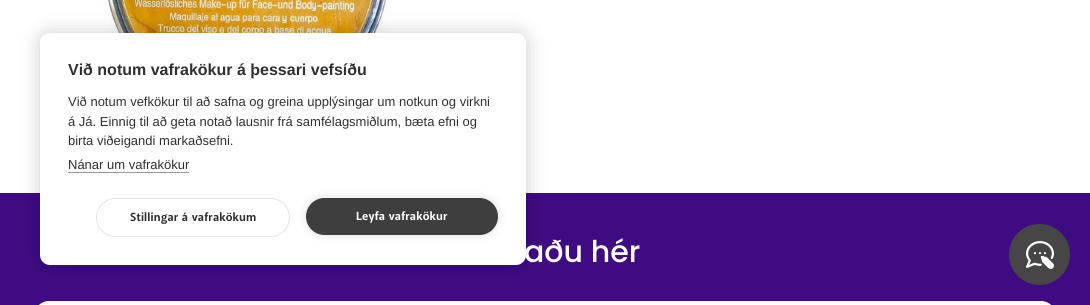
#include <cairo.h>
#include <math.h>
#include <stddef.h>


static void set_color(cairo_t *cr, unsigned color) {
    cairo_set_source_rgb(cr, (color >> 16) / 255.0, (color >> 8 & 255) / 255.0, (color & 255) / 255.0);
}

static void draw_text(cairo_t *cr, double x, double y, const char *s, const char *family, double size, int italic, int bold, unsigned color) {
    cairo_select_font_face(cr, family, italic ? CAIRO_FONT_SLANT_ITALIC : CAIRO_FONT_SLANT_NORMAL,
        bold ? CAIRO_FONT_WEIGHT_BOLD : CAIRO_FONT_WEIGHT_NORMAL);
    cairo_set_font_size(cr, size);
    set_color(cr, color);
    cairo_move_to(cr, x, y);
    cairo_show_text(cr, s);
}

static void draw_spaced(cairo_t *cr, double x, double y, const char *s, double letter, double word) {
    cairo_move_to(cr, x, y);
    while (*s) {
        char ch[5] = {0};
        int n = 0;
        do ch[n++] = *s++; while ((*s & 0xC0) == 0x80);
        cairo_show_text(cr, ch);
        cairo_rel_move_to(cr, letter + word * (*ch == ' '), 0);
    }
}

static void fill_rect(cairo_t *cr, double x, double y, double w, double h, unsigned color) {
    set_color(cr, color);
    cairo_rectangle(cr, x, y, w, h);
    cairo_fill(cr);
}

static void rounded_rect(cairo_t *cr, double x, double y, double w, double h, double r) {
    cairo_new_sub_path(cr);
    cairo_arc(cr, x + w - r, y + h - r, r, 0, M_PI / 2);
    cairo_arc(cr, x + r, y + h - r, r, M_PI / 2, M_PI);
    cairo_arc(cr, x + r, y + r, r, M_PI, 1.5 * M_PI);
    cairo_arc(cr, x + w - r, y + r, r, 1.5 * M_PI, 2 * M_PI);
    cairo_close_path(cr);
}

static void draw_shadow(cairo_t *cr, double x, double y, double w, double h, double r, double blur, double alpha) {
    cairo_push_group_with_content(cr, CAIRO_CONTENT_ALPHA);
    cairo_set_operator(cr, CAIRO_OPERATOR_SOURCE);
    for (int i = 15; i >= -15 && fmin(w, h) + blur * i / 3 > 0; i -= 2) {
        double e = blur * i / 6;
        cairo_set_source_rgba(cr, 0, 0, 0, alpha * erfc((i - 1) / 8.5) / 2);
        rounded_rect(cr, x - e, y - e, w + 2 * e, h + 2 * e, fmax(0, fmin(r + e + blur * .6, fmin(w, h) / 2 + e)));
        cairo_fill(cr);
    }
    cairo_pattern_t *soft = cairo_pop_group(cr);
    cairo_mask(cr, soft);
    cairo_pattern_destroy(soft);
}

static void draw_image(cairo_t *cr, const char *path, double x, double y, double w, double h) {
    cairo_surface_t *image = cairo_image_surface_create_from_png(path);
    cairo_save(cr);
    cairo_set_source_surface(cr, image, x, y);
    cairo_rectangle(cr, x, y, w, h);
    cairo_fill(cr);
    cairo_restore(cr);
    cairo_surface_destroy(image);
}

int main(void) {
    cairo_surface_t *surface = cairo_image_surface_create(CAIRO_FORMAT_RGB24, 1090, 305);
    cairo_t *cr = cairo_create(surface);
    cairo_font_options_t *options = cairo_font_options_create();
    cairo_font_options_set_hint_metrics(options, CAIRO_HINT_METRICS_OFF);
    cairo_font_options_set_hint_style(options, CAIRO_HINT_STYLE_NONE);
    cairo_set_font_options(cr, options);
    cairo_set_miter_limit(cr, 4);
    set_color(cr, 0xFFFFFF);
    cairo_paint(cr);
    draw_image(cr, "assets/img1.png", 103, 0, 286, 33);
    fill_rect(cr, 0, 193, 1090, 112, 0x3F0B82);
    set_color(cr, 0x000000);
    draw_shadow(cr, 40, 33, 486, 232, 10, 10, 0.2);
    set_color(cr, 0xFFFFFF);
    rounded_rect(cr, 40, 33, 486, 232, 10);
    cairo_fill(cr);
    draw_text(cr, 68, 75, "Við notum vafrakökur á þessari vefsíðu", "Liberation Sans", 16, 0, 1, 0x303030);
    draw_text(cr, 68, 106, "Við notum vefkökur til að safna og greina upplýsingar um notkun og virkni", "Liberation Sans", 13, 0, 0, 0x303030);
    draw_text(cr, 68, 126, "á Já. Einnig til að geta notað lausnir frá samfélagsmiðlum, bæta efni og", "Liberation Sans", 13, 0, 0, 0x303030);
    draw_text(cr, 68, 145, "birta viðeigandi markaðsefni.", "Liberation Sans", 13, 0, 0, 0x303030);
    draw_text(cr, 68, 169, "Nánar um vafrakökur", "Liberation Sans", 13, 0, 0, 0x303030);
    fill_rect(cr, 68, 172, 121, 1, 0x999999);
    rounded_rect(cr, 96.5, 198.5, 193, 38, 19);
    set_color(cr, 0xE5E5E5);
    cairo_set_line_width(cr, 1);
    cairo_stroke(cr);
    cairo_select_font_face(cr, "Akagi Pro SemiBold", CAIRO_FONT_SLANT_NORMAL, CAIRO_FONT_WEIGHT_NORMAL);
    cairo_set_font_size(cr, 12);
    set_color(cr, 0x303030);
    draw_spaced(cr, 130, 221, "Stillingar á vafrakökum", 0.2, 0);
    set_color(cr, 0x000000);
    draw_shadow(cr, 306, 198, 192, 37, 18.5, 5, 0.12);
    set_color(cr, 0x3E3E3E);
    rounded_rect(cr, 306, 198, 192, 37, 18.5);
    cairo_fill(cr);
    set_color(cr, 0xFFFFFF);
    draw_spaced(cr, 356, 220, "Leyfa vafrakökur", 0.2, 0);
    draw_text(cr, 524, 262, "aðu hér", "Poppins Medium", 30, 0, 0, 0xFFFFFF);
    rounded_rect(cr, 34, 301, 1022, 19, 15);
    cairo_fill(cr);
    set_color(cr, 0x464646);
    cairo_arc(cr, 1039.5, 254.5, 30.5, 0, 2 * M_PI);
    cairo_fill(cr);
    draw_image(cr, "assets/img2.png", 1026, 241, 28, 28);
    cairo_surface_write_to_png(surface, "output.png");
    cairo_font_options_destroy(options);
    cairo_destroy(cr);
    cairo_surface_destroy(surface);
    return 0;
}
